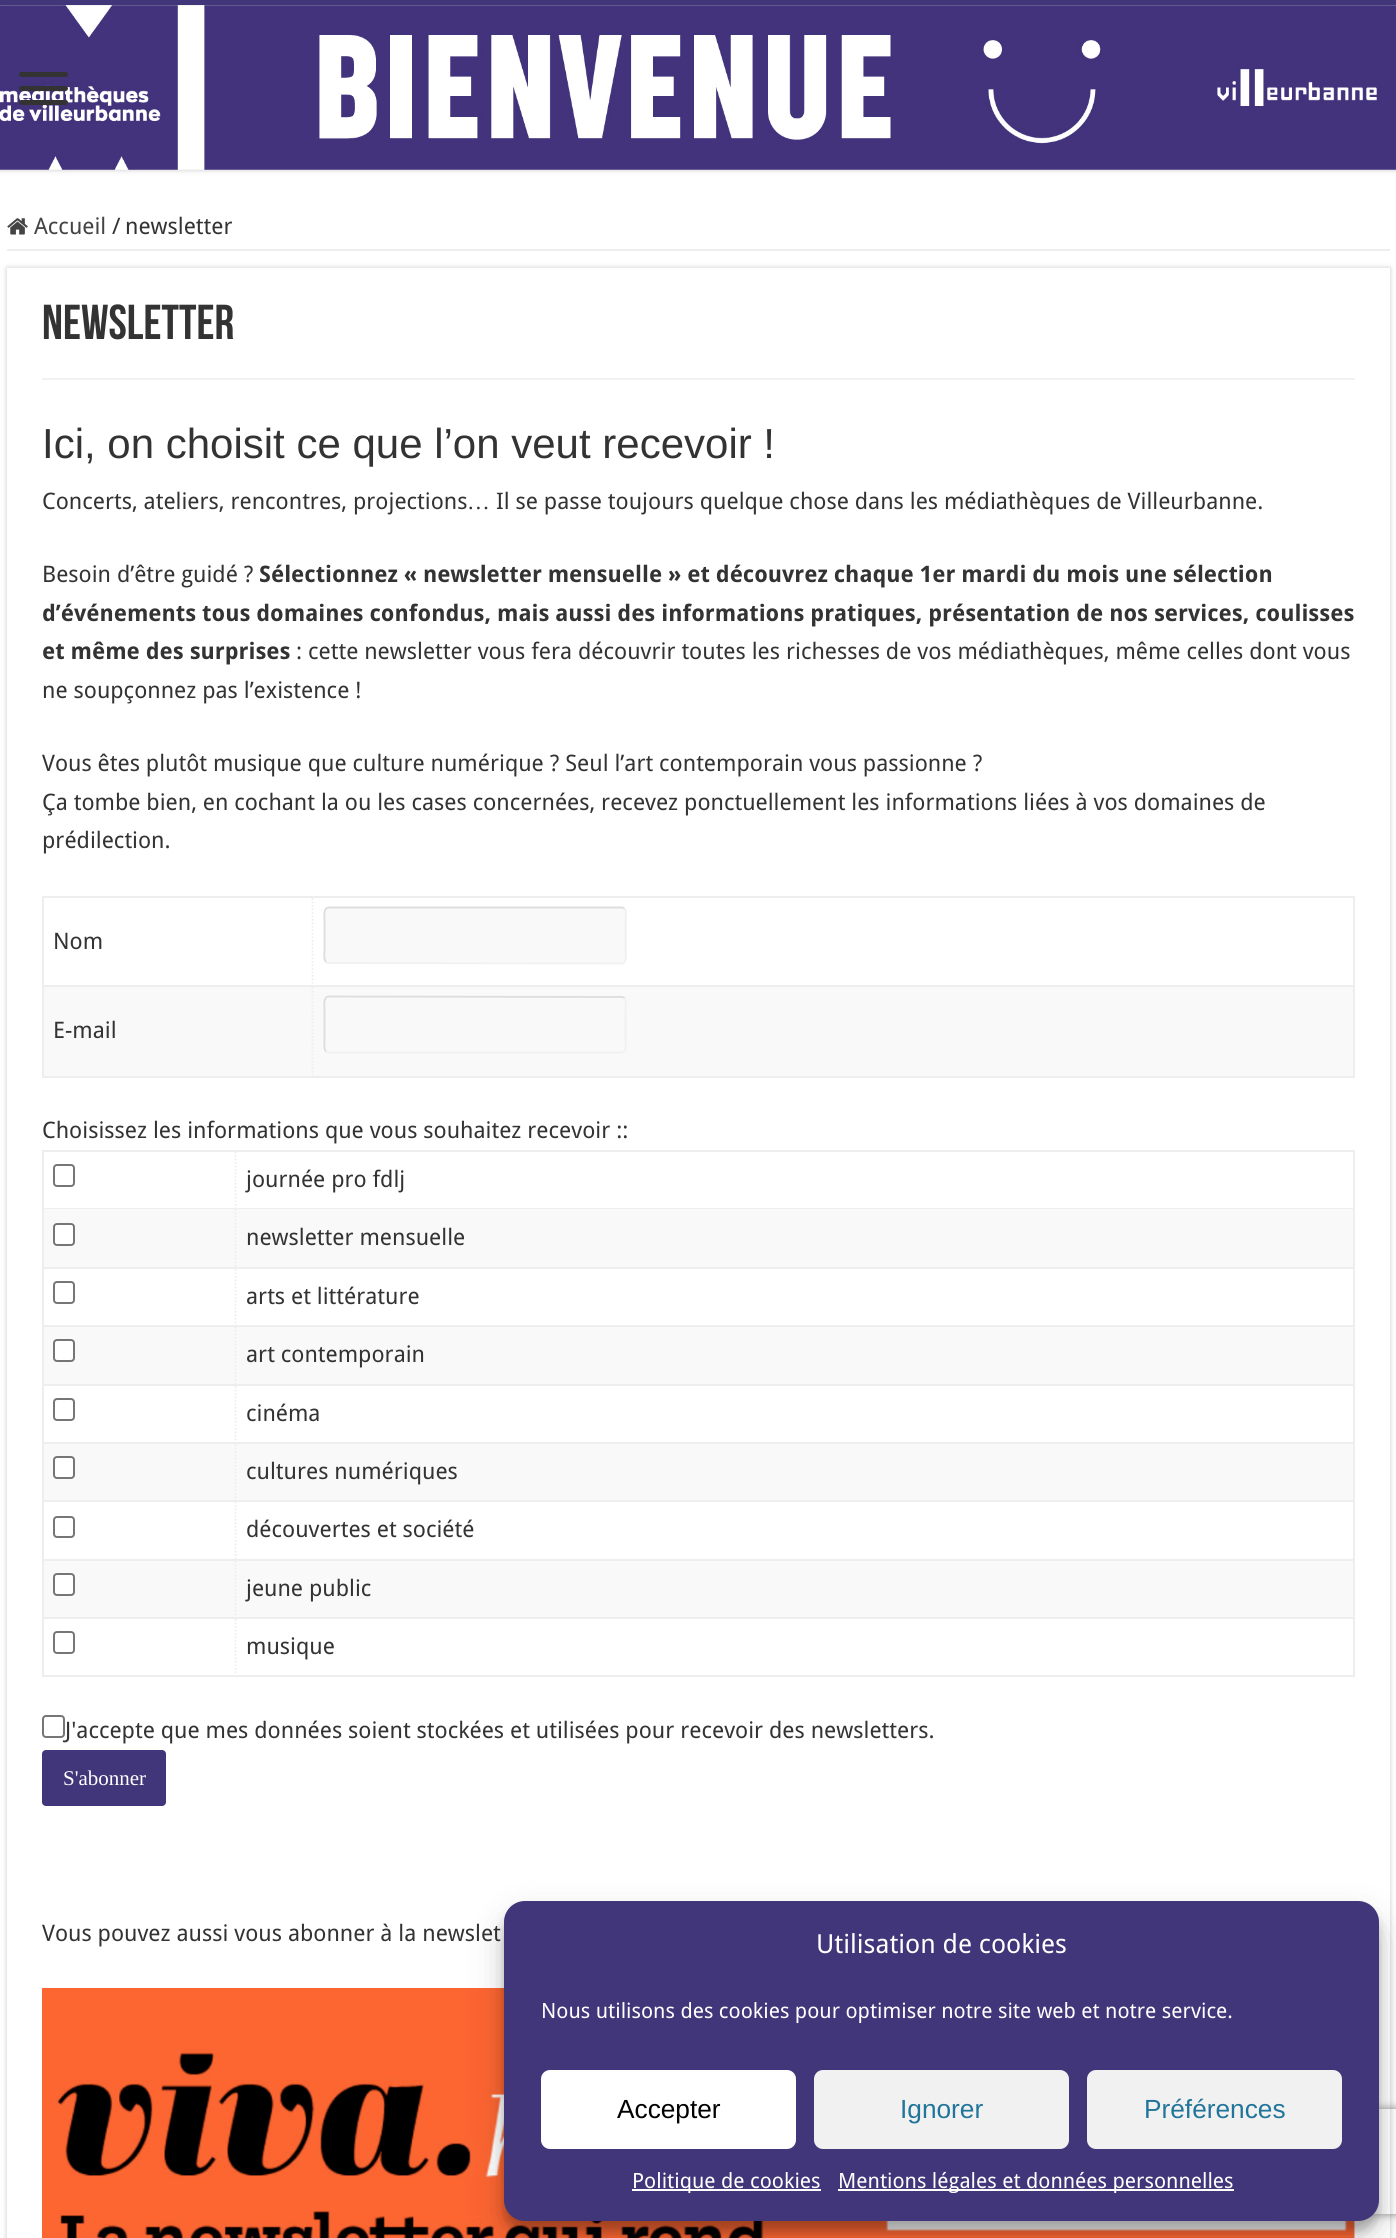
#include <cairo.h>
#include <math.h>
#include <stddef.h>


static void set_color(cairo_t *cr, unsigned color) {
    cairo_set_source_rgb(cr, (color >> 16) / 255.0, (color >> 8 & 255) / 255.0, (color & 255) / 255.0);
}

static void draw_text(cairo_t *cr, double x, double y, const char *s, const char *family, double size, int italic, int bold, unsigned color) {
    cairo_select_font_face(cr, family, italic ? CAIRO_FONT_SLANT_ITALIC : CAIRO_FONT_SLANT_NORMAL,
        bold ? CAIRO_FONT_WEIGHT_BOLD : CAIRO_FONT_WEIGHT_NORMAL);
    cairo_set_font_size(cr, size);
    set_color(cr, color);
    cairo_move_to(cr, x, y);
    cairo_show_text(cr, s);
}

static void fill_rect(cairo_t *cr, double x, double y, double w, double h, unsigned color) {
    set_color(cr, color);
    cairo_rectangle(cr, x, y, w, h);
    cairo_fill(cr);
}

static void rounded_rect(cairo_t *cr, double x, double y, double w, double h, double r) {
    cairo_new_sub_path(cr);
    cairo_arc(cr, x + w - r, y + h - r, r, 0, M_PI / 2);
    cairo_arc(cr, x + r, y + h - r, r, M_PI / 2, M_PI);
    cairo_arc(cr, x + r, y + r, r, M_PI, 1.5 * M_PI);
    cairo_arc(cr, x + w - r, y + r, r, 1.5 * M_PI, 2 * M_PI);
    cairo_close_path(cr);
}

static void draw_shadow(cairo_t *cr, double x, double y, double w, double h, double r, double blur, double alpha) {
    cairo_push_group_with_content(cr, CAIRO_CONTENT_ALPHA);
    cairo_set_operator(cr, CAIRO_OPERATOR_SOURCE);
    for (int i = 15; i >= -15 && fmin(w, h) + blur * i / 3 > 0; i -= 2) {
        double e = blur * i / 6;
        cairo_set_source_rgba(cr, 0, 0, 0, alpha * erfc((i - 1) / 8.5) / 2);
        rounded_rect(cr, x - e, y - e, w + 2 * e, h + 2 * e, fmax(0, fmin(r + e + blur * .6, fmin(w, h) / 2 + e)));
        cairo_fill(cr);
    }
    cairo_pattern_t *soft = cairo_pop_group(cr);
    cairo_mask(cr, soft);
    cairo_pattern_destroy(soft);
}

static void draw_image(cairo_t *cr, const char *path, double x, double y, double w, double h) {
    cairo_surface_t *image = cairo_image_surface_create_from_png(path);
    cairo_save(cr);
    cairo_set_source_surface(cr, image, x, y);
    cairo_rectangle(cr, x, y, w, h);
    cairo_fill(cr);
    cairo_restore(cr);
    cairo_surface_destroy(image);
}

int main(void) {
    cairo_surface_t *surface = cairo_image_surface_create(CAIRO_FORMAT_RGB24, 1396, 2238);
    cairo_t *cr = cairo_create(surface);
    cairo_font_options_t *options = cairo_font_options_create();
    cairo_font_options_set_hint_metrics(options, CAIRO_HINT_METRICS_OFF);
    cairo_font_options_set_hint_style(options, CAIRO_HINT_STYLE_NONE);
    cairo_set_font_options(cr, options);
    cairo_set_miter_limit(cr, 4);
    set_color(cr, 0xFFFFFF);
    cairo_paint(cr);
    set_color(cr, 0xCACACA);
    draw_shadow(cr, 0, 0, 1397, 170, 0, 2.5, 1);
    fill_rect(cr, 0, 0, 1396, 5, 0x403679);
    draw_image(cr, "assets/img1.png", 0, 5, 1396, 165);
    set_color(cr, 0x333333);
    rounded_rect(cr, 19, 72, 49, 5, 2.5);
    cairo_fill(cr);
    rounded_rect(cr, 19, 86, 49, 5, 2.5);
    cairo_fill(cr);
    rounded_rect(cr, 19, 100, 49, 5, 2.5);
    cairo_fill(cr);
    fill_rect(cr, 7, 249, 1383, 2, 0xEEEEEE);
    draw_image(cr, "assets/img2.png", 7, 218, 21, 17);
    draw_text(cr, 34, 234, "Accueil", "Droid Sans", 22.75, 0, 0, 0x444444);
    draw_text(cr, 112, 234, "/", "Droid Sans", 22.75, 0, 0, 0x333333);
    draw_text(cr, 125, 234, "newsletter", "Droid Sans", 22.75, 0, 0, 0x333333);
    set_color(cr, 0xCACACA);
    draw_shadow(cr, 7, 268, 1383, 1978, 0, 2.5, 1);
    fill_rect(cr, 7, 268, 1383, 1970, 0xFFFFFF);
    draw_text(cr, 42, 339, "newsletter", "Bebas Neue", 49, 0, 1, 0x333333);
    fill_rect(cr, 42, 378, 1313, 2, 0xF2F2F2);
    draw_text(cr, 42, 458, "Ici, on choisit ce que l’on veut recevoir !", "Liberation Sans", 42, 0, 0, 0x333333);
    draw_text(cr, 42, 509, "Concerts, ateliers, rencontres, projections", "Droid Sans", 22.75, 0, 0, 0x333333);
    draw_text(cr, 467, 509, "…", "Liberation Serif", 22.75, 0, 0, 0x333333);
    draw_text(cr, 496, 509, "Il se passe toujours quelque chose dans les médiathèques de Villeurbanne.", "Droid Sans", 22.75, 0, 0, 0x333333);
    draw_text(cr, 42, 582, "Besoin d’être guidé ?", "Droid Sans", 22.75, 0, 0, 0x333333);
    draw_text(cr, 259, 582, "Sélectionnez « newsletter mensuelle » et découvrez chaque 1er mardi du mois une sélection", "Droid Sans", 22.75, 0, 1, 0x333333);
    draw_text(cr, 42, 621, "d’événements tous domaines confondus, mais aussi des informations pratiques, présentation de nos services, coulisses", "Droid Sans", 22.75, 0, 1, 0x333333);
    draw_text(cr, 42, 659, "et même des surprises", "Droid Sans", 22.75, 0, 1, 0x333333);
    draw_text(cr, 296, 659, ": cette newsletter vous fera découvrir toutes les richesses de vos médiathèques, même celles dont vous", "Droid Sans", 22.75, 0, 0, 0x333333);
    draw_text(cr, 42, 698, "ne soupçonnez pas l’existence !", "Droid Sans", 22.75, 0, 0, 0x333333);
    draw_text(cr, 42, 771, "Vous êtes plutôt musique que culture numérique ? Seul l’art contemporain vous passionne ?", "Droid Sans", 22.75, 0, 0, 0x333333);
    draw_text(cr, 42, 810, "Ça tombe bien, en cochant la ou les cases concernées, recevez ponctuellement les informations liées à vos domaines de", "Droid Sans", 22.75, 0, 0, 0x333333);
    draw_text(cr, 42, 848, "prédilection.", "Droid Sans", 22.75, 0, 0, 0x333333);
    cairo_rectangle(cr, 43, 897, 1311, 180);
    set_color(cr, 0xEEEEEE);
    cairo_stroke(cr);
    cairo_new_path(cr);
    cairo_move_to(cr, 312.5, 898);
    cairo_line_to(cr, 312.5, 987);
    cairo_set_line_width(cr, 1.8);
    cairo_set_dash(cr, (double[]){1.75, 1.75}, 2, 0);
    cairo_stroke(cr);
    fill_rect(cr, 44, 985, 1309, 2, 0xEEEEEE);
    draw_text(cr, 53, 949, "Nom", "Droid Sans", 22.75, 0, 0, 0x333333);
    set_color(cr, 0xF9F9F9);
    rounded_rect(cr, 324, 907, 303, 57, 5);
    cairo_fill(cr);
    cairo_new_path(cr);
    cairo_move_to(cr, 624.5, 908.5);
    cairo_curve_to(cr, 627, 911, 625.5, 917.5, 625.5, 919.5);
    cairo_line_to(cr, 625.5, 951);
    cairo_curve_to(cr, 625.5, 954.5, 627.5, 963.5, 621, 963.5);
    cairo_line_to(cr, 327.5, 963);
    cairo_line_to(cr, 326, 962);
    set_color(cr, 0xF1F1F1);
    cairo_set_dash(cr, NULL, 0, 0);
    cairo_stroke(cr);
    cairo_new_path(cr);
    cairo_move_to(cr, 326, 962);
    cairo_curve_to(cr, 323.5, 959.5, 324.5, 953, 324.5, 951);
    cairo_line_to(cr, 324.5, 919.5);
    cairo_curve_to(cr, 324.5, 916.5, 323, 907.5, 329, 907.5);
    cairo_line_to(cr, 622.5, 907.5);
    cairo_line_to(cr, 624.5, 908.5);
    set_color(cr, 0xDDDDDD);
    cairo_stroke(cr);
    fill_rect(cr, 44, 987, 1309, 89, 0xF9F9F9);
    cairo_new_path(cr);
    cairo_move_to(cr, 312.5, 987);
    cairo_line_to(cr, 312.5, 1076);
    set_color(cr, 0xEEEEEE);
    cairo_set_dash(cr, (double[]){1.75, 1.75}, 2, 0);
    cairo_stroke(cr);
    draw_text(cr, 53, 1038, "E-mail", "Droid Sans", 22.75, 0, 0, 0x333333);
    cairo_new_path(cr);
    cairo_move_to(cr, 624.5, 998);
    cairo_curve_to(cr, 627, 1000.5, 625.5, 1007, 625.5, 1009);
    cairo_line_to(cr, 625.5, 1040.5);
    cairo_curve_to(cr, 625.5, 1043.5, 627.5, 1052.5, 621, 1052.5);
    cairo_line_to(cr, 327.5, 1052.5);
    cairo_line_to(cr, 326, 1051.5);
    set_color(cr, 0xF1F1F1);
    cairo_set_dash(cr, NULL, 0, 0);
    cairo_stroke(cr);
    cairo_new_path(cr);
    cairo_move_to(cr, 326, 1051.5);
    cairo_curve_to(cr, 323.5, 1049, 324.5, 1042.5, 324.5, 1040.5);
    cairo_line_to(cr, 324.5, 1009);
    cairo_curve_to(cr, 324.5, 1005.5, 323, 996.5, 329, 996.5);
    cairo_line_to(cr, 622.5, 997);
    cairo_line_to(cr, 624.5, 998);
    set_color(cr, 0xDDDDDD);
    cairo_stroke(cr);
    draw_text(cr, 42, 1138, "Choisissez les informations que vous souhaitez recevoir ::", "Droid Sans", 22.75, 0, 0, 0x333333);
    cairo_rectangle(cr, 43, 1151, 1311, 525);
    set_color(cr, 0xEEEEEE);
    cairo_set_line_width(cr, 2);
    cairo_stroke(cr);
    cairo_new_path(cr);
    cairo_move_to(cr, 235.5, 1151.5);
    cairo_line_to(cr, 235.5, 1209);
    cairo_set_line_width(cr, 1.8);
    cairo_set_dash(cr, (double[]){1.75, 1.75}, 2, 0);
    cairo_stroke(cr);
    fill_rect(cr, 44, 1208, 1309, 1, 0xEEEEEE);
    rounded_rect(cr, 54, 1165, 20, 21, 3);
    set_color(cr, 0x767676);
    cairo_set_line_width(cr, 2);
    cairo_set_dash(cr, NULL, 0, 0);
    cairo_stroke(cr);
    draw_text(cr, 246, 1187, "journée pro fdlj", "Droid Sans", 22.75, 0, 0, 0x333333);
    fill_rect(cr, 44, 1209, 1309, 58, 0xF9F9F9);
    cairo_new_path(cr);
    cairo_move_to(cr, 235.5, 1209);
    cairo_line_to(cr, 235.5, 1269);
    set_color(cr, 0xEEEEEE);
    cairo_set_line_width(cr, 1.8);
    cairo_set_dash(cr, (double[]){1.75, 1.75}, 2, 0);
    cairo_stroke(cr);
    fill_rect(cr, 44, 1267, 1309, 2, 0xEEEEEE);
    set_color(cr, 0xFFFFFF);
    rounded_rect(cr, 54, 1224, 20, 21, 3);
    cairo_fill_preserve(cr);
    set_color(cr, 0x767676);
    cairo_set_line_width(cr, 2);
    cairo_set_dash(cr, NULL, 0, 0);
    cairo_stroke(cr);
    draw_text(cr, 246, 1245, "newsletter mensuelle", "Droid Sans", 22.75, 0, 0, 0x333333);
    cairo_new_path(cr);
    cairo_move_to(cr, 235.5, 1269);
    cairo_line_to(cr, 235.5, 1326.5);
    set_color(cr, 0xEEEEEE);
    cairo_set_line_width(cr, 1.8);
    cairo_set_dash(cr, (double[]){1.75, 1.75}, 2, 0);
    cairo_stroke(cr);
    fill_rect(cr, 44, 1325, 1309, 2, 0xEEEEEE);
    rounded_rect(cr, 54, 1282, 20, 21, 3);
    set_color(cr, 0x767676);
    cairo_set_line_width(cr, 2);
    cairo_set_dash(cr, NULL, 0, 0);
    cairo_stroke(cr);
    draw_text(cr, 246, 1304, "arts et littérature", "Droid Sans", 22.75, 0, 0, 0x333333);
    fill_rect(cr, 44, 1327, 1309, 57, 0xF9F9F9);
    cairo_new_path(cr);
    cairo_move_to(cr, 235.5, 1326.5);
    cairo_line_to(cr, 235.5, 1386);
    set_color(cr, 0xEEEEEE);
    cairo_set_line_width(cr, 1.8);
    cairo_set_dash(cr, (double[]){1.75, 1.75}, 2, 0);
    cairo_stroke(cr);
    fill_rect(cr, 44, 1384, 1309, 2, 0xEEEEEE);
    set_color(cr, 0xFFFFFF);
    rounded_rect(cr, 54, 1340, 20, 21, 3);
    cairo_fill_preserve(cr);
    set_color(cr, 0x767676);
    cairo_set_line_width(cr, 2);
    cairo_set_dash(cr, NULL, 0, 0);
    cairo_stroke(cr);
    draw_text(cr, 246, 1362, "art contemporain", "Droid Sans", 22.75, 0, 0, 0x333333);
    cairo_new_path(cr);
    cairo_move_to(cr, 235.5, 1386);
    cairo_line_to(cr, 235.5, 1444);
    set_color(cr, 0xEEEEEE);
    cairo_set_line_width(cr, 1.8);
    cairo_set_dash(cr, (double[]){1.75, 1.75}, 2, 0);
    cairo_stroke(cr);
    fill_rect(cr, 44, 1442, 1309, 2, 0xEEEEEE);
    rounded_rect(cr, 54, 1399, 20, 21, 3);
    set_color(cr, 0x767676);
    cairo_set_line_width(cr, 2);
    cairo_set_dash(cr, NULL, 0, 0);
    cairo_stroke(cr);
    draw_text(cr, 246, 1421, "cinéma", "Droid Sans", 22.75, 0, 0, 0x333333);
    fill_rect(cr, 44, 1444, 1309, 56, 0xF9F9F9);
    cairo_new_path(cr);
    cairo_move_to(cr, 235.5, 1444);
    cairo_line_to(cr, 235.5, 1501.5);
    set_color(cr, 0xEEEEEE);
    cairo_set_line_width(cr, 1.8);
    cairo_set_dash(cr, (double[]){1.75, 1.75}, 2, 0);
    cairo_stroke(cr);
    fill_rect(cr, 44, 1500, 1309, 2, 0xEEEEEE);
    set_color(cr, 0xFFFFFF);
    rounded_rect(cr, 54, 1457, 20, 21, 3);
    cairo_fill_preserve(cr);
    set_color(cr, 0x767676);
    cairo_set_line_width(cr, 2);
    cairo_set_dash(cr, NULL, 0, 0);
    cairo_stroke(cr);
    draw_text(cr, 246, 1479, "cultures numériques", "Droid Sans", 22.75, 0, 0, 0x333333);
    cairo_new_path(cr);
    cairo_move_to(cr, 235.5, 1501.5);
    cairo_line_to(cr, 235.5, 1561);
    set_color(cr, 0xEEEEEE);
    cairo_set_line_width(cr, 1.8);
    cairo_set_dash(cr, (double[]){1.75, 1.75}, 2, 0);
    cairo_stroke(cr);
    fill_rect(cr, 44, 1559, 1309, 2, 0xEEEEEE);
    rounded_rect(cr, 54, 1517, 20, 20, 3);
    set_color(cr, 0x767676);
    cairo_set_line_width(cr, 2);
    cairo_set_dash(cr, NULL, 0, 0);
    cairo_stroke(cr);
    draw_text(cr, 246, 1537, "découvertes et société", "Droid Sans", 22.75, 0, 0, 0x333333);
    fill_rect(cr, 44, 1561, 1309, 56, 0xF9F9F9);
    cairo_new_path(cr);
    cairo_move_to(cr, 235.5, 1561);
    cairo_line_to(cr, 235.5, 1619);
    set_color(cr, 0xEEEEEE);
    cairo_set_line_width(cr, 1.8);
    cairo_set_dash(cr, (double[]){1.75, 1.75}, 2, 0);
    cairo_stroke(cr);
    fill_rect(cr, 44, 1617, 1309, 2, 0xEEEEEE);
    set_color(cr, 0xFFFFFF);
    rounded_rect(cr, 54, 1574, 20, 21, 3);
    cairo_fill_preserve(cr);
    set_color(cr, 0x767676);
    cairo_set_line_width(cr, 2);
    cairo_set_dash(cr, NULL, 0, 0);
    cairo_stroke(cr);
    draw_text(cr, 246, 1596, "jeune public", "Droid Sans", 22.75, 0, 0, 0x333333);
    cairo_new_path(cr);
    cairo_move_to(cr, 235.5, 1619);
    cairo_line_to(cr, 235.5, 1675);
    set_color(cr, 0xEEEEEE);
    cairo_set_line_width(cr, 1.8);
    cairo_set_dash(cr, (double[]){1.75, 1.75}, 2, 0);
    cairo_stroke(cr);
    rounded_rect(cr, 54, 1632, 20, 21, 3);
    set_color(cr, 0x767676);
    cairo_set_line_width(cr, 2);
    cairo_set_dash(cr, NULL, 0, 0);
    cairo_stroke(cr);
    draw_text(cr, 246, 1654, "musique", "Droid Sans", 22.75, 0, 0, 0x333333);
    rounded_rect(cr, 43, 1716, 21, 21, 3);
    set_color(cr, 0x767676);
    cairo_stroke(cr);
    draw_text(cr, 65, 1738, "J'accepte que mes données soient stockées et utilisées pour recevoir des newsletters.", "Droid Sans", 22.75, 0, 0, 0x333333);
    set_color(cr, 0x403679);
    rounded_rect(cr, 42, 1750, 124, 56, 4);
    cairo_fill(cr);
    draw_text(cr, 63, 1785, "S'abonner", "Liberation Serif", 21, 0, 0, 0xFFFFFF);
    draw_text(cr, 42, 1941, "Vous pouvez aussi vous abonner à la newslet", "Droid Sans", 22.75, 0, 0, 0x333333);
    draw_image(cr, "assets/img3.png", 42, 1988, 1313, 250);
    set_color(cr, 0x000000);
    draw_shadow(cr, 504, 1911, 875, 320, 21, 5, 0.23);
    draw_shadow(cr, 504, 1918, 875, 320, 21, 17.5, 0.19);
    cairo_save(cr);
    cairo_set_fill_rule(cr, CAIRO_FILL_RULE_EVEN_ODD);
    cairo_new_path(cr);
    cairo_move_to(cr, 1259, 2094);
    cairo_line_to(cr, 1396, 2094);
    cairo_line_to(cr, 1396, 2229);
    cairo_line_to(cr, 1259, 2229);
    cairo_close_path(cr);
    cairo_move_to(cr, 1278, 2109);
    cairo_line_to(cr, 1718, 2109);
    cairo_curve_to(cr, 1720, 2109, 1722, 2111, 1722, 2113);
    cairo_line_to(cr, 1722, 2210);
    cairo_curve_to(cr, 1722, 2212, 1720, 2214, 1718, 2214);
    cairo_line_to(cr, 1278, 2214);
    cairo_curve_to(cr, 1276, 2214, 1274, 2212, 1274, 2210);
    cairo_line_to(cr, 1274, 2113);
    cairo_curve_to(cr, 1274, 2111, 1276, 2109, 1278, 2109);
    cairo_close_path(cr);
    cairo_clip(cr);
    set_color(cr, 0x808080);
    draw_shadow(cr, 1274, 2109, 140, 105, 4, 4.5, 1);
    cairo_restore(cr);
    set_color(cr, 0x403679);
    rounded_rect(cr, 505, 1902, 873, 318, 20);
    cairo_fill_preserve(cr);
    cairo_stroke(cr);
    draw_text(cr, 816, 1953, "Utilisation de cookies", "Droid Sans", 26.25, 0, 0, 0xFFFFFF);
    draw_text(cr, 541, 2018, "Nous utilisons des cookies pour optimiser notre site web et notre service.", "Droid Sans", 21, 0, 0, 0xFFFFFF);
    rounded_rect(cr, 542, 2071, 253, 77, 8);
    cairo_fill_preserve(cr);
    cairo_stroke(cr);
    draw_text(cr, 617, 2118, "Accepter", "Liberation Sans", 26.25, 0, 0, 0x000000);
    set_color(cr, 0xF1F1F1);
    rounded_rect(cr, 815, 2071, 253, 77, 8);
    cairo_fill_preserve(cr);
    cairo_stroke(cr);
    draw_text(cr, 900, 2118, "Ignorer", "Liberation Sans", 26.25, 0, 0, 0x21759B);
    set_color(cr, 0xF1F1F1);
    rounded_rect(cr, 1088, 2071, 253, 77, 8);
    cairo_fill_preserve(cr);
    cairo_stroke(cr);
    draw_text(cr, 1144, 2118, "Préférences", "Liberation Sans", 26.25, 0, 0, 0x21759B);
    fill_rect(cr, 632, 2189, 189, 2, 0xFFFFFF);
    draw_text(cr, 632, 2188, "Politique de cookies", "Droid Sans", 21, 0, 0, 0xFFFFFF);
    fill_rect(cr, 838, 2189, 396, 2, 0xFFFFFF);
    draw_text(cr, 838, 2188, "Mentions légales et données personnelles", "Droid Sans", 21, 0, 0, 0xFFFFFF);
    cairo_surface_write_to_png(surface, "output.png");
    cairo_font_options_destroy(options);
    cairo_destroy(cr);
    cairo_surface_destroy(surface);
    return 0;
}
